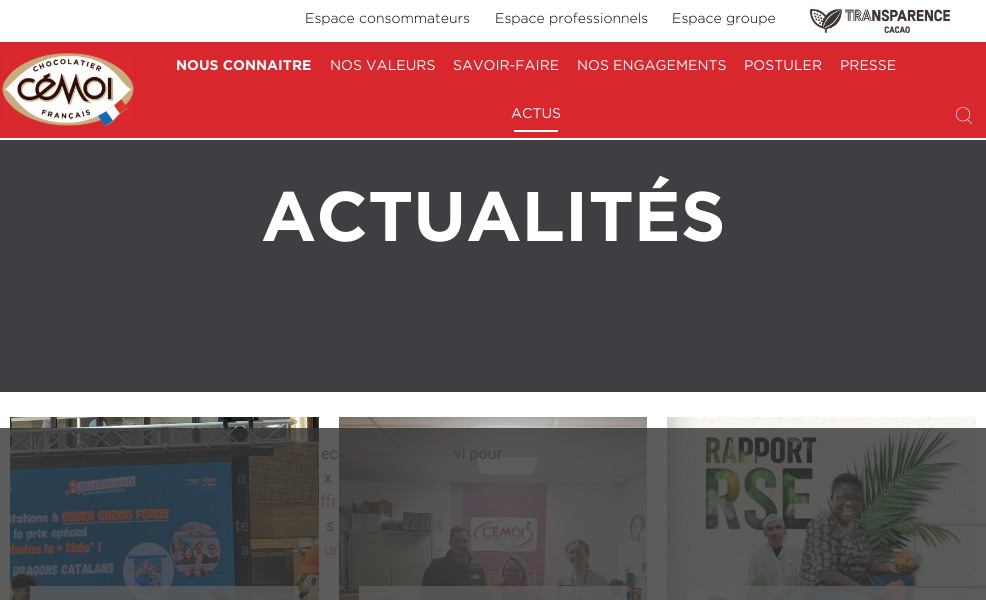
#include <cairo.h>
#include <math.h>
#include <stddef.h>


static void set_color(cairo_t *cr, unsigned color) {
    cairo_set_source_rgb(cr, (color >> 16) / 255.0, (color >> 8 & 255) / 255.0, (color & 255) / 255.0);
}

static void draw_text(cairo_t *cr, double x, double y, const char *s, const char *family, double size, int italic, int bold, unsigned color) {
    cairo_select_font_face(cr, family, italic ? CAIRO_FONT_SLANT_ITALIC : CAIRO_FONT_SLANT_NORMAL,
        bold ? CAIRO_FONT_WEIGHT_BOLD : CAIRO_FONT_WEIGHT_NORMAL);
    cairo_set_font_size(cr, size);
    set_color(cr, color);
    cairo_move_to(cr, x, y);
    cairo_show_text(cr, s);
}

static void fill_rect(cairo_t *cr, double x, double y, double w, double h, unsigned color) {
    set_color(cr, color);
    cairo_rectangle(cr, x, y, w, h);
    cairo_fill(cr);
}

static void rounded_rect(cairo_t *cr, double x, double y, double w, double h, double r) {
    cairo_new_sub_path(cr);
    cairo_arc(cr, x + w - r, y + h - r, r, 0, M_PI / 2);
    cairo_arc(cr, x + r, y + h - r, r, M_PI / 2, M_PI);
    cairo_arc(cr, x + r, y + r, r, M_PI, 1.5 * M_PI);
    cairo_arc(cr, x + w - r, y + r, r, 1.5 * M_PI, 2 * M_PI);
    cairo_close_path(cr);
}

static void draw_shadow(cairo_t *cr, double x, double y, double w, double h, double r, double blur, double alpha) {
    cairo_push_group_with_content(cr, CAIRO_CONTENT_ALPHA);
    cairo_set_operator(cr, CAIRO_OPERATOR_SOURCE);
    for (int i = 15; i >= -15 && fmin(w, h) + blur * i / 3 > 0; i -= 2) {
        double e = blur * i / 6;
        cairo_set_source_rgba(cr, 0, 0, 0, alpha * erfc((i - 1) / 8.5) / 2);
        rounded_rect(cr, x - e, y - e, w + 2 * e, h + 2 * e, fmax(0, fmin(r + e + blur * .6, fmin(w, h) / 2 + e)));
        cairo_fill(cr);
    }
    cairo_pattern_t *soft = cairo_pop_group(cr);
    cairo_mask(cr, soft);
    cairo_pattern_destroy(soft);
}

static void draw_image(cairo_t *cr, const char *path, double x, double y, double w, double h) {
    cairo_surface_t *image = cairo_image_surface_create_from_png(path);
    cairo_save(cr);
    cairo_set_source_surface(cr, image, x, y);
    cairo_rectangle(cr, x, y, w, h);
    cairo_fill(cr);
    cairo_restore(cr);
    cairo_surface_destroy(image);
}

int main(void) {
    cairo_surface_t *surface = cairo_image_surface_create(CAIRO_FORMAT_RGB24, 986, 600);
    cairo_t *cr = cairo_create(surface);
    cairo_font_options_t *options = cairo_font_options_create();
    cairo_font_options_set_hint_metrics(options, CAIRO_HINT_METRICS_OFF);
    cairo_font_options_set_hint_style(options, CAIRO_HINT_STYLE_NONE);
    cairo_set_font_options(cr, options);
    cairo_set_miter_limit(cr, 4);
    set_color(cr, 0xFFFFFF);
    cairo_paint(cr);
    fill_rect(cr, 0, 428, 986, 172, 0x5C5C5C);
    fill_rect(cr, 0, 42, 986, 96, 0xD9272E);
    draw_text(cr, 305, 23, "Espace consommateurs", "Gotham Light", 14, 0, 0, 0x000000);
    draw_text(cr, 495, 23, "Espace professionnels", "Gotham Light", 14, 0, 0, 0x000000);
    draw_text(cr, 672, 23, "Espace groupe", "Gotham Light", 14, 0, 0, 0x000000);
    draw_image(cr, "assets/img1.png", 810, 9, 140, 24);
    draw_image(cr, "assets/img2.png", 2, 53, 132, 73);
    draw_text(cr, 176, 70, "NOUS CONNAITRE", "Gotham", 14, 0, 1, 0xFFFFFF);
    draw_text(cr, 330, 70, "NOS VALEURS", "Gotham", 14, 0, 0, 0xFFFFFF);
    draw_text(cr, 453, 70, "SAVOIR-FAIRE", "Gotham", 14, 0, 0, 0xFFFFFF);
    draw_text(cr, 577, 70, "NOS ENGAGEMENTS", "Gotham", 14, 0, 0, 0xFFFFFF);
    draw_text(cr, 744, 70, "POSTULER", "Gotham", 14, 0, 0, 0xFFFFFF);
    draw_text(cr, 840, 70, "PRESSE", "Gotham", 14, 0, 0, 0xFFFFFF);
    draw_text(cr, 511, 118, "ACTUS", "Gotham", 14, 0, 0, 0xFFFFFF);
    fill_rect(cr, 514, 130, 44, 2, 0xFFFFFF);
    draw_image(cr, "assets/img3.png", 955, 107, 18, 18);
    fill_rect(cr, 0, 140, 986, 252, 0x3E3E43);
    draw_text(cr, 261, 241, "ACTUALITÉS", "Gotham", 70, 0, 1, 0xFFFFFF);
    draw_image(cr, "assets/img4.png", 10, 417, 309, 183);
    cairo_set_source_rgba(cr, 0.361, 0.361, 0.361, 0.8);
    cairo_rectangle(cr, 30, 586, 269, 14);
    cairo_fill(cr);
    draw_image(cr, "assets/img5.png", 339, 417, 308, 183);
    cairo_rectangle(cr, 359, 586, 268, 14);
    cairo_fill(cr);
    draw_image(cr, "assets/img6.png", 667, 417, 309, 183);
    cairo_rectangle(cr, 687, 586, 264, 14);
    cairo_fill(cr);
    draw_text(cr, 321, 459, "ec", "Roboto", 16, 0, 0, 0x3F3F3E);
    draw_text(cr, 454, 459, "vi pour", "Roboto", 16, 0, 0, 0x3F3F3E);
    draw_text(cr, 237, 483, "a", "Roboto", 16, 0, 0, 0x3A4147);
    draw_text(cr, 324, 483, "x", "Roboto", 16, 0, 0, 0x3A4147);
    draw_text(cr, 320, 507, "ffr", "Roboto", 16, 0, 0, 0x4F4A4A);
    draw_text(cr, 235, 531, "té", "Roboto", 16, 0, 0, 0x414447);
    draw_text(cr, 326, 531, "s", "Roboto", 16, 0, 0, 0x414447);
    draw_text(cr, 526, 531, "r", "Roboto", 16, 0, 0, 0x414447);
    draw_text(cr, 241, 555, "a", "Roboto", 16, 0, 0, 0x3A4147);
    draw_text(cr, 324, 555, "ur", "Roboto", 16, 0, 0, 0x4F4A4A);
    cairo_save(cr);
    cairo_set_fill_rule(cr, CAIRO_FILL_RULE_EVEN_ODD);
    cairo_new_path(cr);
    cairo_move_to(cr, 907, 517);
    cairo_line_to(cr, 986, 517);
    cairo_line_to(cr, 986, 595);
    cairo_line_to(cr, 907, 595);
    cairo_close_path(cr);
    cairo_move_to(cr, 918, 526);
    cairo_line_to(cr, 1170, 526);
    cairo_curve_to(cr, 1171, 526, 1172, 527, 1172, 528);
    cairo_line_to(cr, 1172, 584);
    cairo_curve_to(cr, 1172, 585, 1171, 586, 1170, 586);
    cairo_line_to(cr, 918, 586);
    cairo_curve_to(cr, 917, 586, 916, 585, 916, 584);
    cairo_line_to(cr, 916, 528);
    cairo_curve_to(cr, 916, 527, 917, 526, 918, 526);
    cairo_close_path(cr);
    cairo_clip(cr);
    set_color(cr, 0x424242);
    draw_shadow(cr, 916, 526, 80, 60, 2, 2.5, 1);
    cairo_restore(cr);
    cairo_surface_write_to_png(surface, "output.png");
    cairo_font_options_destroy(options);
    cairo_destroy(cr);
    cairo_surface_destroy(surface);
    return 0;
}
